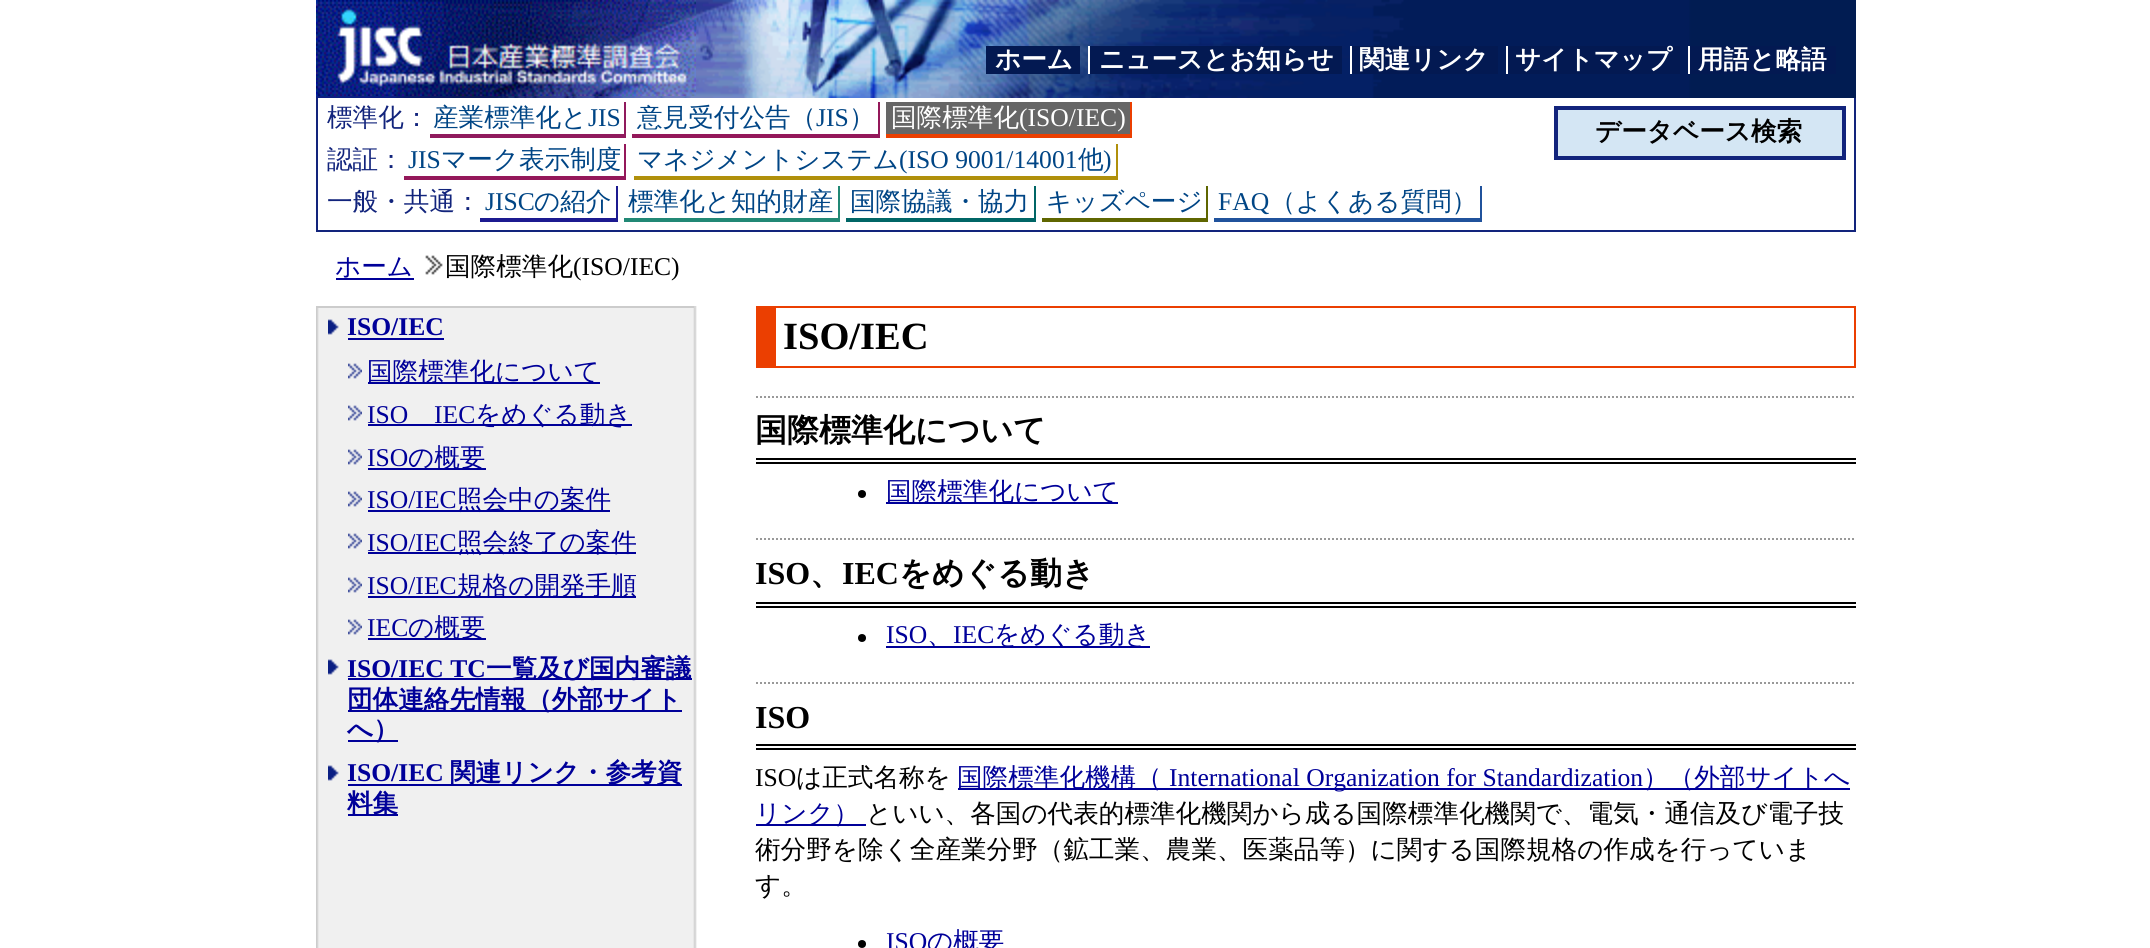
#include <cairo.h>
#include <math.h>
#include <stddef.h>


static void set_color(cairo_t *cr, unsigned color) {
    cairo_set_source_rgb(cr, (color >> 16) / 255.0, (color >> 8 & 255) / 255.0, (color & 255) / 255.0);
}

static void draw_text(cairo_t *cr, double x, double y, const char *s, const char *family, double size, int italic, int bold, unsigned color) {
    cairo_select_font_face(cr, family, italic ? CAIRO_FONT_SLANT_ITALIC : CAIRO_FONT_SLANT_NORMAL,
        bold ? CAIRO_FONT_WEIGHT_BOLD : CAIRO_FONT_WEIGHT_NORMAL);
    cairo_set_font_size(cr, size);
    set_color(cr, color);
    cairo_move_to(cr, x, y);
    cairo_show_text(cr, s);
}

static void fill_rect(cairo_t *cr, double x, double y, double w, double h, unsigned color) {
    set_color(cr, color);
    cairo_rectangle(cr, x, y, w, h);
    cairo_fill(cr);
}

static void draw_image(cairo_t *cr, const char *path, double x, double y, double w, double h) {
    cairo_surface_t *image = cairo_image_surface_create_from_png(path);
    cairo_save(cr);
    cairo_set_source_surface(cr, image, x, y);
    cairo_rectangle(cr, x, y, w, h);
    cairo_fill(cr);
    cairo_restore(cr);
    cairo_surface_destroy(image);
}

int main(void) {
    cairo_surface_t *surface = cairo_image_surface_create(CAIRO_FORMAT_RGB24, 2150, 948);
    cairo_t *cr = cairo_create(surface);
    cairo_font_options_t *options = cairo_font_options_create();
    cairo_font_options_set_hint_metrics(options, CAIRO_HINT_METRICS_OFF);
    cairo_font_options_set_hint_style(options, CAIRO_HINT_STYLE_NONE);
    cairo_set_font_options(cr, options);
    cairo_set_miter_limit(cr, 4);
    set_color(cr, 0xFFFFFF);
    cairo_paint(cr);
    draw_image(cr, "assets/img1.png", 316, 306, 381, 642);
    draw_image(cr, "assets/img2.png", 316, 0, 1540, 98);
    draw_image(cr, "assets/img3.png", 316, 0, 380, 96);
    fill_rect(cr, 986, 46, 94, 28, 0x031952);
    draw_text(cr, 995, 68, "ホーム", "WenQuanYi Zen Hei", 25.6, 0, 1, 0xFFFFFF);
    fill_rect(cr, 1090, 46, 252, 28, 0x031952);
    draw_text(cr, 1099, 68, "ニュースとお知らせ", "WenQuanYi Zen Hei", 25.6, 0, 1, 0xFFFFFF);
    fill_rect(cr, 1088, 46, 2, 28, 0xFFFFFF);
    fill_rect(cr, 1352, 46, 146, 28, 0x031952);
    draw_text(cr, 1359, 68, "関連リンク", "WenQuanYi Zen Hei", 25.6, 0, 1, 0xFFFFFF);
    fill_rect(cr, 1350, 46, 2, 28, 0xFFFFFF);
    fill_rect(cr, 1508, 46, 172, 28, 0x031952);
    draw_text(cr, 1515, 68, "サイトマップ", "WenQuanYi Zen Hei", 25.6, 0, 1, 0xFFFFFF);
    fill_rect(cr, 1506, 46, 2, 28, 0xFFFFFF);
    fill_rect(cr, 1690, 46, 146, 28, 0x031952);
    draw_text(cr, 1698, 68, "用語と略語", "WenQuanYi Zen Hei", 25.6, 0, 1, 0xFFFFFF);
    fill_rect(cr, 1688, 46, 2, 28, 0xFFFFFF);
    fill_rect(cr, 1854, 98, 2, 134, 0x12247C);
    fill_rect(cr, 316, 230, 1540, 2, 0x12247C);
    fill_rect(cr, 316, 98, 2, 134, 0x12247C);
    draw_text(cr, 327, 126, "標準化：", "WenQuanYi Zen Hei Medium", 25.6, 0, 0, 0x12247C);
    draw_text(cr, 433, 126, "産業標準化と", "WenQuanYi Zen Hei Medium", 25.6, 0, 0, 0x004585);
    draw_text(cr, 588, 126, "JIS", "Liberation Serif", 25.6, 0, 0, 0x004585);
    fill_rect(cr, 624, 102, 2, 36, 0x901A5D);
    fill_rect(cr, 430, 134, 196, 4, 0x901A5D);
    draw_text(cr, 637, 126, "意見受付公告（", "WenQuanYi Zen Hei Medium", 25.6, 0, 0, 0x004585);
    draw_text(cr, 816, 126, "JIS", "Liberation Serif", 25.6, 0, 0, 0x004585);
    draw_text(cr, 849, 126, "）", "WenQuanYi Zen Hei Medium", 25.6, 0, 0, 0x004585);
    fill_rect(cr, 878, 102, 2, 36, 0x94185A);
    fill_rect(cr, 632, 134, 248, 4, 0x94185A);
    fill_rect(cr, 886, 102, 244, 32, 0x666666);
    draw_text(cr, 891, 126, "国際標準化", "WenQuanYi Zen Hei Medium", 25.6, 0, 0, 0xFFFFFF);
    draw_text(cr, 1019, 126, "(ISO/IEC)", "Liberation Serif", 25.6, 0, 0, 0xFFFFFF);
    fill_rect(cr, 1130, 102, 2, 36, 0xEB3F01);
    fill_rect(cr, 886, 134, 246, 4, 0xEB3F01);
    draw_text(cr, 327, 168, "認証：", "WenQuanYi Zen Hei Medium", 25.6, 0, 0, 0x12247C);
    draw_text(cr, 408, 168, "JIS", "Liberation Serif", 25.6, 0, 0, 0x004585);
    fill_rect(cr, 624, 144, 2, 36, 0x94185A);
    fill_rect(cr, 404, 176, 222, 4, 0x94185A);
    draw_text(cr, 441, 168, "マーク表示制度", "WenQuanYi Zen Hei Medium", 25.6, 0, 0, 0x004585);
    draw_text(cr, 637, 168, "マネジメントシステム", "WenQuanYi Zen Hei Medium", 25.6, 0, 0, 0x004585);
    draw_text(cr, 899, 168, "(ISO 9001/14001", "Liberation Serif", 25.6, 0, 0, 0x004585);
    fill_rect(cr, 1116, 144, 2, 36, 0xB0900B);
    fill_rect(cr, 634, 176, 484, 4, 0xB0900B);
    draw_text(cr, 1078, 168, "他", "WenQuanYi Zen Hei Medium", 25.6, 0, 0, 0x004585);
    draw_text(cr, 1103, 168, ")", "Liberation Serif", 25.6, 0, 0, 0x004585);
    draw_text(cr, 327, 210, "一般・共通：", "WenQuanYi Zen Hei Medium", 25.6, 0, 0, 0x12247C);
    draw_text(cr, 485, 210, "JISC", "Liberation Serif", 25.6, 0, 0, 0x004585);
    fill_rect(cr, 616, 186, 2, 36, 0x1C1A90);
    fill_rect(cr, 480, 218, 138, 4, 0x1C1A90);
    draw_text(cr, 534, 210, "の紹介", "WenQuanYi Zen Hei Medium", 25.6, 0, 0, 0x004585);
    draw_text(cr, 628, 210, "標準化と知的財産", "WenQuanYi Zen Hei Medium", 25.6, 0, 0, 0x004585);
    fill_rect(cr, 838, 186, 2, 36, 0x218875);
    fill_rect(cr, 624, 218, 216, 4, 0x218875);
    draw_text(cr, 850, 210, "国際協議・協力", "WenQuanYi Zen Hei Medium", 25.6, 0, 0, 0x004585);
    fill_rect(cr, 1034, 186, 2, 36, 0x006666);
    fill_rect(cr, 846, 218, 190, 4, 0x006666);
    draw_text(cr, 1046, 210, "キッズページ", "WenQuanYi Zen Hei Medium", 25.6, 0, 0, 0x004585);
    fill_rect(cr, 1206, 186, 2, 36, 0x5F6600);
    fill_rect(cr, 1042, 218, 166, 4, 0x5F6600);
    draw_text(cr, 1218, 210, "FAQ", "Liberation Serif", 25.6, 0, 0, 0x004585);
    fill_rect(cr, 1480, 186, 2, 36, 0x20529C);
    fill_rect(cr, 1214, 218, 268, 4, 0x20529C);
    draw_text(cr, 1270, 210, "（よくある質問）", "WenQuanYi Zen Hei Medium", 25.6, 0, 0, 0x004585);
    set_color(cr, 0xD4E6F4);
    cairo_rectangle(cr, 1556, 108, 288, 50);
    cairo_fill_preserve(cr);
    set_color(cr, 0x12247C);
    cairo_set_line_width(cr, 4);
    cairo_stroke(cr);
    draw_text(cr, 1595, 140, "データベース検索", "WenQuanYi Zen Hei", 25.6, 0, 1, 0x000000);
    draw_text(cr, 335, 275, "ホーム", "WenQuanYi Zen Hei Medium", 25.6, 0, 0, 0x000099);
    fill_rect(cr, 336, 278, 78, 2, 0x000099);
    draw_image(cr, "assets/img4.png", 425, 255, 18, 20);
    draw_text(cr, 445, 275, "国際標準化", "WenQuanYi Zen Hei Medium", 25.6, 0, 0, 0x000000);
    draw_text(cr, 573, 275, "(ISO/IEC)", "Liberation Serif", 25.6, 0, 0, 0x000000);
    fill_rect(cr, 316, 306, 378, 2, 0xCCCCCC);
    draw_image(cr, "assets/img5.png", 328, 319, 11, 16);
    draw_text(cr, 347, 335, "ISO/IEC", "Liberation Serif", 25.6, 0, 1, 0x000099);
    fill_rect(cr, 348, 338, 96, 2, 0x000099);
    draw_image(cr, "assets/img6.png", 348, 363, 14, 16);
    fill_rect(cr, 368, 382, 232, 2, 0x000099);
    draw_text(cr, 367, 380, "国際標準化について", "WenQuanYi Zen Hei Medium", 25.6, 0, 0, 0x000099);
    draw_image(cr, "assets/img6.png", 348, 405, 14, 16);
    draw_text(cr, 367, 423, "ISO", "Liberation Serif", 25.6, 0, 0, 0x000099);
    fill_rect(cr, 368, 424, 264, 2, 0x000099);
    draw_text(cr, 434, 423, "IEC", "Liberation Serif", 25.6, 0, 0, 0x000099);
    draw_text(cr, 475, 423, "をめぐる動き", "WenQuanYi Zen Hei Medium", 25.6, 0, 0, 0x000099);
    draw_image(cr, "assets/img6.png", 348, 449, 14, 16);
    draw_text(cr, 367, 466, "ISO", "Liberation Serif", 25.6, 0, 0, 0x000099);
    fill_rect(cr, 368, 468, 118, 2, 0x000099);
    draw_text(cr, 408, 466, "の概要", "WenQuanYi Zen Hei Medium", 25.6, 0, 0, 0x000099);
    draw_image(cr, "assets/img6.png", 348, 491, 14, 16);
    draw_text(cr, 367, 508, "ISO/IEC", "Liberation Serif", 25.6, 0, 0, 0x000099);
    fill_rect(cr, 368, 510, 242, 2, 0x000099);
    draw_text(cr, 457, 508, "照会中の案件", "WenQuanYi Zen Hei Medium", 25.6, 0, 0, 0x000099);
    draw_image(cr, "assets/img6.png", 348, 533, 14, 16);
    draw_text(cr, 367, 551, "ISO/IEC", "Liberation Serif", 25.6, 0, 0, 0x000099);
    fill_rect(cr, 368, 552, 268, 2, 0x000099);
    draw_text(cr, 457, 551, "照会終了の案件", "WenQuanYi Zen Hei Medium", 25.6, 0, 0, 0x000099);
    draw_image(cr, "assets/img6.png", 348, 577, 14, 16);
    draw_text(cr, 367, 594, "ISO/IEC", "Liberation Serif", 25.6, 0, 0, 0x000099);
    fill_rect(cr, 368, 596, 268, 2, 0x000099);
    draw_text(cr, 457, 594, "規格の開発手順", "WenQuanYi Zen Hei Medium", 25.6, 0, 0, 0x000099);
    draw_image(cr, "assets/img6.png", 348, 619, 14, 16);
    draw_text(cr, 367, 636, "IEC", "Liberation Serif", 25.6, 0, 0, 0x000099);
    fill_rect(cr, 368, 638, 118, 2, 0x000099);
    draw_text(cr, 408, 636, "の概要", "WenQuanYi Zen Hei Medium", 25.6, 0, 0, 0x000099);
    draw_image(cr, "assets/img5.png", 328, 659, 11, 16);
    draw_text(cr, 347, 677, "ISO/IEC TC", "Liberation Serif", 25.6, 0, 1, 0x000099);
    fill_rect(cr, 348, 678, 344, 2, 0x000099);
    draw_text(cr, 486, 677, "一覧及び国内審議", "WenQuanYi Zen Hei", 25.6, 0, 1, 0x000099);
    fill_rect(cr, 348, 710, 334, 2, 0x000099);
    draw_text(cr, 347, 708, "団体連絡先情報（外部サイト", "WenQuanYi Zen Hei", 25.6, 0, 1, 0x000099);
    fill_rect(cr, 348, 740, 50, 2, 0x000099);
    draw_text(cr, 347, 738, "へ）", "WenQuanYi Zen Hei", 25.6, 0, 1, 0x000099);
    draw_image(cr, "assets/img5.png", 328, 765, 11, 16);
    draw_text(cr, 347, 781, "ISO/IEC", "Liberation Serif", 25.6, 0, 1, 0x000099);
    fill_rect(cr, 348, 784, 334, 2, 0x000099);
    draw_text(cr, 450, 781, "関連リンク・参考資", "WenQuanYi Zen Hei", 25.6, 0, 1, 0x000099);
    fill_rect(cr, 348, 814, 50, 2, 0x000099);
    draw_text(cr, 347, 812, "料集", "WenQuanYi Zen Hei", 25.6, 0, 1, 0x000099);
    fill_rect(cr, 776, 306, 1080, 2, 0xEB3F01);
    fill_rect(cr, 1854, 306, 2, 62, 0xEB3F01);
    fill_rect(cr, 776, 366, 1080, 2, 0xEB3F01);
    fill_rect(cr, 756, 306, 20, 62, 0xEB3F01);
    draw_text(cr, 783, 349, "ISO/IEC", "Liberation Serif", 38.5, 0, 1, 0x000000);
    cairo_new_path(cr);
    cairo_move_to(cr, 756, 397);
    cairo_line_to(cr, 1856, 397);
    set_color(cr, 0x999999);
    cairo_set_line_width(cr, 2);
    cairo_set_dash(cr, (double[]){2, 2}, 2, 0);
    cairo_stroke(cr);
    fill_rect(cr, 756, 458, 1100, 2, 0x000000);
    fill_rect(cr, 756, 462, 1100, 2, 0x000000);
    draw_text(cr, 755, 441, "国際標準化について", "WenQuanYi Zen Hei", 32, 0, 1, 0x000000);
    cairo_new_path(cr);
    cairo_arc(cr, 862, 494, 4, 0, 2 * M_PI);
    cairo_fill(cr);
    fill_rect(cr, 886, 502, 232, 2, 0x000099);
    draw_text(cr, 886, 500, "国際標準化について", "WenQuanYi Zen Hei Medium", 25.6, 0, 0, 0x000099);
    cairo_new_path(cr);
    cairo_move_to(cr, 756, 539);
    cairo_line_to(cr, 1856, 539);
    set_color(cr, 0x999999);
    cairo_stroke(cr);
    fill_rect(cr, 756, 602, 1100, 2, 0x000000);
    fill_rect(cr, 756, 606, 1100, 2, 0x000000);
    draw_text(cr, 755, 584, "ISO", "Liberation Serif", 32, 0, 1, 0x000000);
    draw_text(cr, 810, 584, "、", "WenQuanYi Zen Hei", 32, 0, 1, 0x000000);
    draw_text(cr, 842, 584, "IEC", "Liberation Serif", 32, 0, 1, 0x000000);
    draw_text(cr, 899, 584, "をめぐる動き", "WenQuanYi Zen Hei", 32, 0, 1, 0x000000);
    cairo_new_path(cr);
    cairo_arc(cr, 862, 638, 4, 0, 2 * M_PI);
    cairo_fill(cr);
    draw_text(cr, 886, 643, "ISO", "Liberation Serif", 25.6, 0, 0, 0x000099);
    draw_text(cr, 953, 643, "IEC", "Liberation Serif", 25.6, 0, 0, 0x000099);
    fill_rect(cr, 886, 646, 264, 2, 0x000099);
    draw_text(cr, 994, 643, "をめぐる動き", "WenQuanYi Zen Hei Medium", 25.6, 0, 0, 0x000099);
    draw_text(cr, 927, 643, "、", "WenQuanYi Zen Hei Medium", 25.6, 0, 0, 0x000099);
    cairo_new_path(cr);
    cairo_move_to(cr, 756, 683);
    cairo_line_to(cr, 1856, 683);
    set_color(cr, 0x999999);
    cairo_stroke(cr);
    fill_rect(cr, 756, 744, 1100, 2, 0x000000);
    fill_rect(cr, 756, 748, 1100, 2, 0x000000);
    draw_text(cr, 755, 728, "ISO", "Liberation Serif", 32, 0, 1, 0x000000);
    draw_text(cr, 755, 786, "ISO", "Liberation Serif", 25.6, 0, 0, 0x000000);
    draw_text(cr, 796, 786, "は正式名称を", "WenQuanYi Zen Hei Medium", 25.6, 0, 0, 0x000000);
    fill_rect(cr, 958, 788, 684, 2, 0x000099);
    draw_text(cr, 957, 786, "国際標準化機構（", "WenQuanYi Zen Hei Medium", 25.6, 0, 0, 0x000099);
    draw_text(cr, 1169, 786, "International Organization for Standardization", "Liberation Serif", 25.6, 0, 0, 0x000099);
    fill_rect(cr, 1642, 788, 208, 2, 0x000099);
    draw_text(cr, 1643, 786, "）（外部サイトへ", "WenQuanYi Zen Hei Medium", 25.6, 0, 0, 0x000099);
    fill_rect(cr, 756, 824, 110, 2, 0x000099);
    draw_text(cr, 755, 822, "リンク）", "WenQuanYi Zen Hei Medium", 25.6, 0, 0, 0x000099);
    draw_text(cr, 866, 822, "といい、各国の代表的標準化機関から成る国際標準化機関で、電気・通信及び電子技", "WenQuanYi Zen Hei Medium", 25.6, 0, 0, 0x000000);
    draw_text(cr, 755, 858, "術分野を除く全産業分野（鉱工業、農業、医薬品等）に関する国際規格の作成を行っていま", "WenQuanYi Zen Hei Medium", 25.6, 0, 0, 0x000000);
    draw_text(cr, 755, 894, "す。", "WenQuanYi Zen Hei Medium", 25.6, 0, 0, 0x000000);
    cairo_new_path(cr);
    cairo_arc(cr, 862, 944, 4, 0, 2 * M_PI);
    cairo_fill(cr);
    draw_text(cr, 886, 950, "ISO", "Liberation Serif", 25.6, 0, 0, 0x000099);
    draw_text(cr, 927, 950, "の概要", "WenQuanYi Zen Hei Medium", 25.6, 0, 0, 0x000099);
    cairo_surface_write_to_png(surface, "output.png");
    cairo_font_options_destroy(options);
    cairo_destroy(cr);
    cairo_surface_destroy(surface);
    return 0;
}
